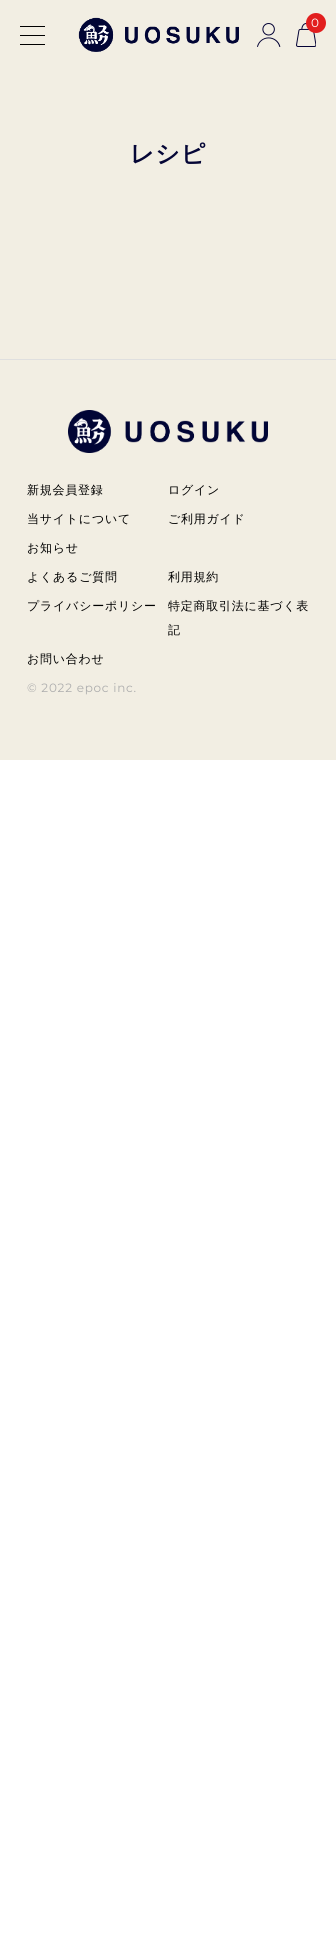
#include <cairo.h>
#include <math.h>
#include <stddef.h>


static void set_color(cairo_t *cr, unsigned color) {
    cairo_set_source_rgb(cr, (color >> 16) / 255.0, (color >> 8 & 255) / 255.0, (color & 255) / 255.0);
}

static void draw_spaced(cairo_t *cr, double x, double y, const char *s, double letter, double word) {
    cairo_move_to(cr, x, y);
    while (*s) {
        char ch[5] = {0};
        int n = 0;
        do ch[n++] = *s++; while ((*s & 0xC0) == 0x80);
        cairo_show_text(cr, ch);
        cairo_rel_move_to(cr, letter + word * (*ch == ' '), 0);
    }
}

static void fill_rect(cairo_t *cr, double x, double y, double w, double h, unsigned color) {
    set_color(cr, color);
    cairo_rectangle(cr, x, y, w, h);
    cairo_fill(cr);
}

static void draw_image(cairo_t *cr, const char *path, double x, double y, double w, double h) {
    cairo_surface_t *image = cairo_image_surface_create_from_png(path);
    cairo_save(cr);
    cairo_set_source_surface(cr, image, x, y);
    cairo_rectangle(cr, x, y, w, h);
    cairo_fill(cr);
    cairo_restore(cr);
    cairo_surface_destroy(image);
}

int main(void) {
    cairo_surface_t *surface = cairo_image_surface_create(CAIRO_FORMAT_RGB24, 336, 1958);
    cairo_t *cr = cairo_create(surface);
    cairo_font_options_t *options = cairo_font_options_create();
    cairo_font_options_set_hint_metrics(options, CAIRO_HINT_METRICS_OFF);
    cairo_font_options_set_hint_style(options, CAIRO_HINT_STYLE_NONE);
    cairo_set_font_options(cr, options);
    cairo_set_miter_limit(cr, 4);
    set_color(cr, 0xFFFFFF);
    cairo_paint(cr);
    fill_rect(cr, 0, 0, 336, 760, 0xF2EEE3);
    draw_image(cr, "assets/img1.png", 78, 17, 161, 35);
    draw_image(cr, "assets/img2.png", 257, 23, 24, 24);
    draw_image(cr, "assets/img3.png", 296, 23, 20, 24);
    set_color(cr, 0xE21E1E);
    cairo_arc(cr, 316, 23, 10, 0, 2 * M_PI);
    cairo_fill(cr);
    cairo_select_font_face(cr, "Montserrat", CAIRO_FONT_SLANT_NORMAL, CAIRO_FONT_WEIGHT_NORMAL);
    cairo_set_font_size(cr, 12);
    set_color(cr, 0xFFFFFF);
    draw_spaced(cr, 311, 27, "0", 0.75, 0);
    fill_rect(cr, 20, 26, 25, 1, 0x000000);
    fill_rect(cr, 20, 35, 25, 1, 0x000000);
    fill_rect(cr, 20, 44, 25, 1, 0x000000);
    cairo_select_font_face(cr, "WenQuanYi Zen Hei", CAIRO_FONT_SLANT_NORMAL, CAIRO_FONT_WEIGHT_BOLD);
    cairo_set_font_size(cr, 24);
    set_color(cr, 0x050636);
    draw_spaced(cr, 130, 162, "レシピ", 0.75, 0);
    fill_rect(cr, 0, 359, 336, 1, 0xDFDFDF);
    draw_image(cr, "assets/img4.png", 68, 410, 200, 43);
    cairo_select_font_face(cr, "WenQuanYi Zen Hei Medium", CAIRO_FONT_SLANT_NORMAL, CAIRO_FONT_WEIGHT_NORMAL);
    cairo_set_font_size(cr, 12);
    set_color(cr, 0x000000);
    draw_spaced(cr, 27, 494, "新規会員登録", 0.75, 0);
    draw_spaced(cr, 168, 494, "ログイン", 0.75, 0);
    draw_spaced(cr, 27, 523, "当サイトについて", 0.75, 0);
    draw_spaced(cr, 168, 523, "ご利用ガイド", 0.75, 0);
    draw_spaced(cr, 27, 552, "お知らせ", 0.75, 0);
    draw_spaced(cr, 27, 581, "よくあるご質問", 0.75, 0);
    draw_spaced(cr, 168, 581, "利用規約", 0.75, 0);
    draw_spaced(cr, 27, 610, "プライバシーポリシー", 0.75, 0);
    draw_spaced(cr, 168, 610, "特定商取引法に基づく表", 0.75, 0);
    draw_spaced(cr, 168, 634, "記", 0.75, 0);
    draw_spaced(cr, 27, 663, "お問い合わせ", 0.75, 0);
    cairo_select_font_face(cr, "Montserrat", CAIRO_FONT_SLANT_NORMAL, CAIRO_FONT_WEIGHT_NORMAL);
    set_color(cr, 0xADADAD);
    draw_spaced(cr, 27, 692, "© 2022 epoc inc.", 0.75, 0);
    cairo_surface_write_to_png(surface, "output.png");
    cairo_font_options_destroy(options);
    cairo_destroy(cr);
    cairo_surface_destroy(surface);
    return 0;
}
